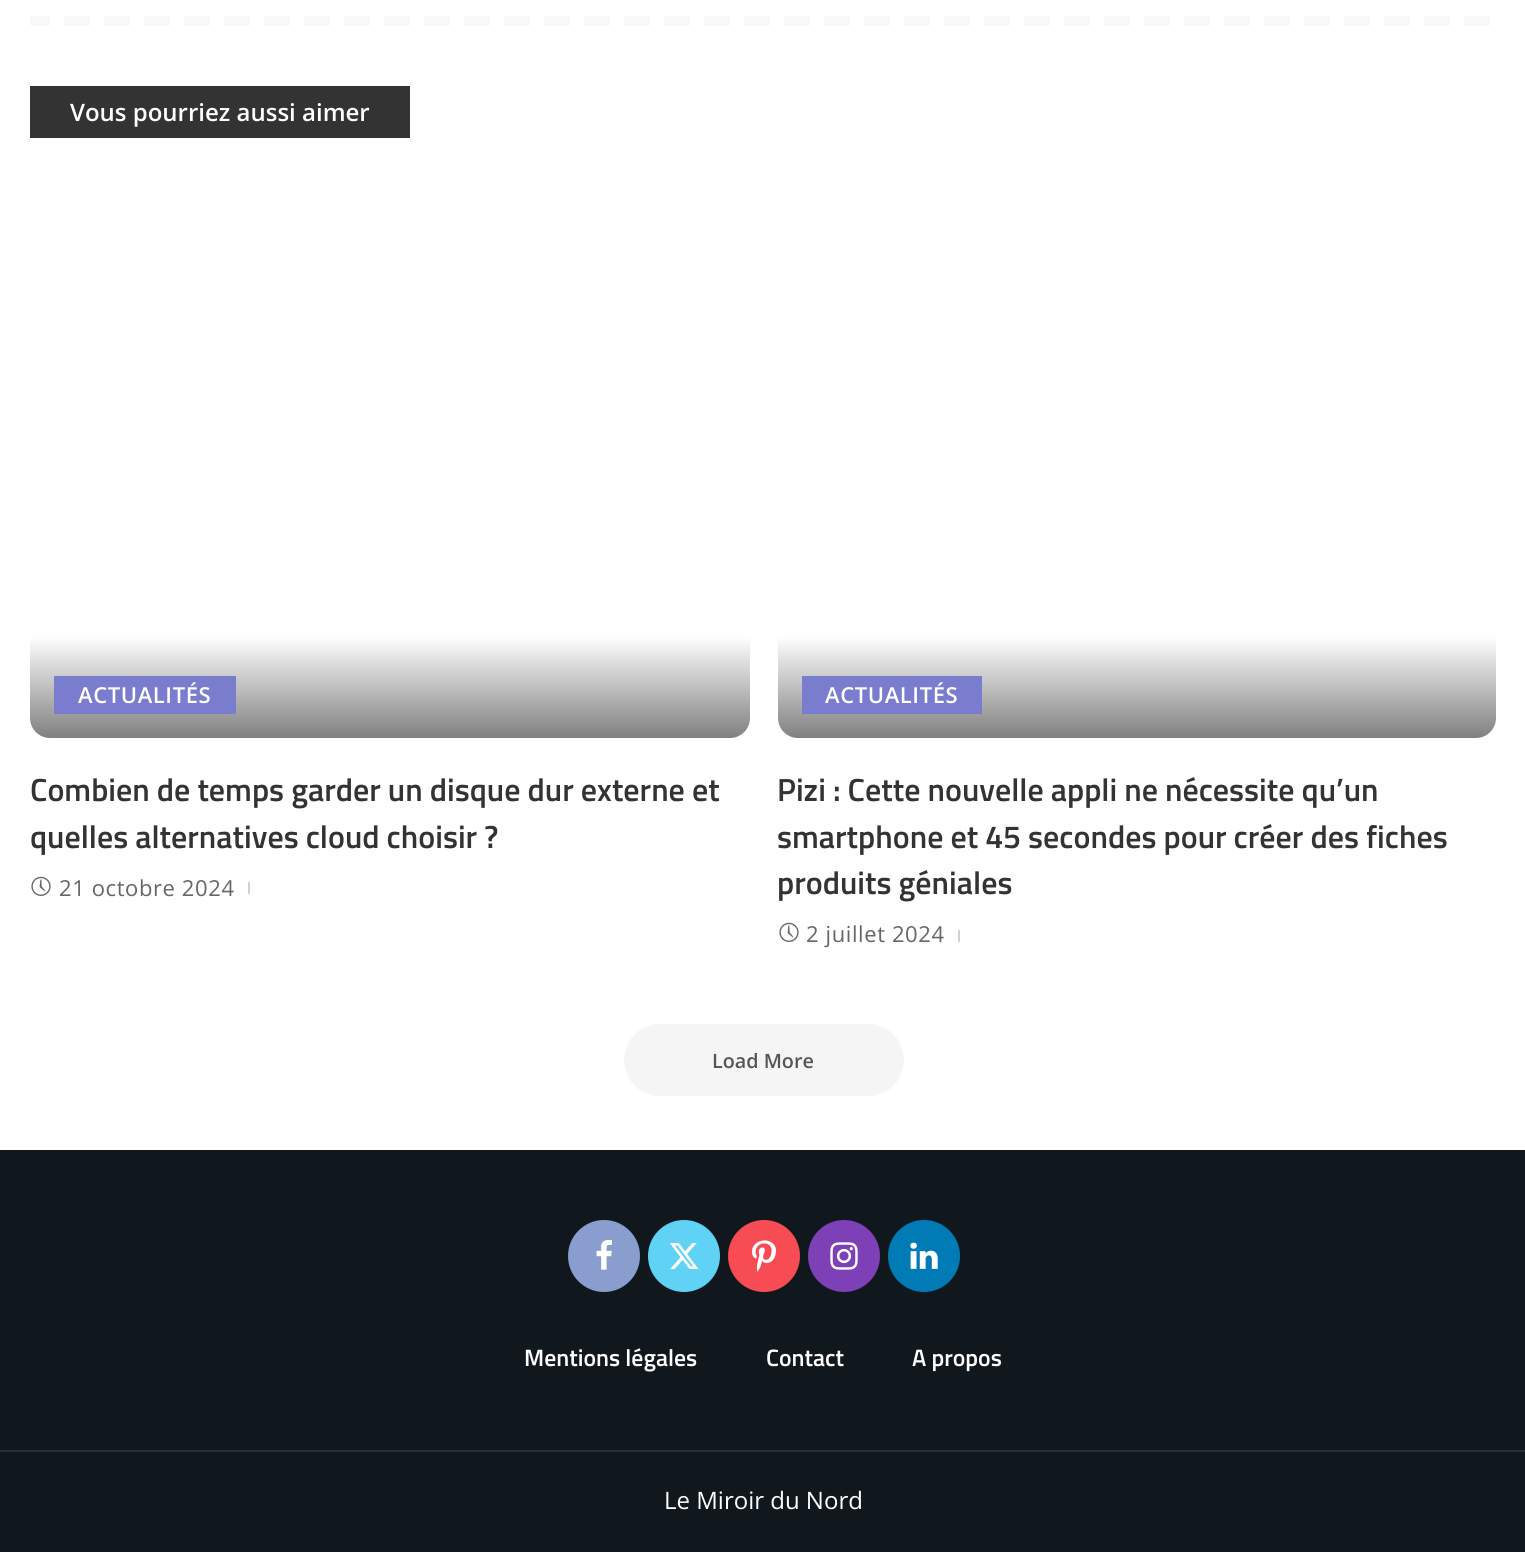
#include <cairo.h>
#include <math.h>
#include <stddef.h>


static void set_color(cairo_t *cr, unsigned color) {
    cairo_set_source_rgb(cr, (color >> 16) / 255.0, (color >> 8 & 255) / 255.0, (color & 255) / 255.0);
}

static void draw_text(cairo_t *cr, double x, double y, const char *s, const char *family, double size, int italic, int bold, unsigned color) {
    cairo_select_font_face(cr, family, italic ? CAIRO_FONT_SLANT_ITALIC : CAIRO_FONT_SLANT_NORMAL,
        bold ? CAIRO_FONT_WEIGHT_BOLD : CAIRO_FONT_WEIGHT_NORMAL);
    cairo_set_font_size(cr, size);
    set_color(cr, color);
    cairo_move_to(cr, x, y);
    cairo_show_text(cr, s);
}

static void draw_spaced(cairo_t *cr, double x, double y, const char *s, double letter, double word) {
    cairo_move_to(cr, x, y);
    while (*s) {
        char ch[5] = {0};
        int n = 0;
        do ch[n++] = *s++; while ((*s & 0xC0) == 0x80);
        cairo_show_text(cr, ch);
        cairo_rel_move_to(cr, letter + word * (*ch == ' '), 0);
    }
}

static void fill_rect(cairo_t *cr, double x, double y, double w, double h, unsigned color) {
    set_color(cr, color);
    cairo_rectangle(cr, x, y, w, h);
    cairo_fill(cr);
}

static void rounded_rect(cairo_t *cr, double x, double y, double w, double h, double r) {
    cairo_new_sub_path(cr);
    cairo_arc(cr, x + w - r, y + h - r, r, 0, M_PI / 2);
    cairo_arc(cr, x + r, y + h - r, r, M_PI / 2, M_PI);
    cairo_arc(cr, x + r, y + r, r, M_PI, 1.5 * M_PI);
    cairo_arc(cr, x + w - r, y + r, r, 1.5 * M_PI, 2 * M_PI);
    cairo_close_path(cr);
}

static void draw_image(cairo_t *cr, const char *path, double x, double y, double w, double h) {
    cairo_surface_t *image = cairo_image_surface_create_from_png(path);
    cairo_save(cr);
    cairo_set_source_surface(cr, image, x, y);
    cairo_rectangle(cr, x, y, w, h);
    cairo_fill(cr);
    cairo_restore(cr);
    cairo_surface_destroy(image);
}

int main(void) {
    cairo_surface_t *surface = cairo_image_surface_create(CAIRO_FORMAT_RGB24, 1525, 1552);
    cairo_t *cr = cairo_create(surface);
    cairo_font_options_t *options = cairo_font_options_create();
    cairo_font_options_set_hint_metrics(options, CAIRO_HINT_METRICS_OFF);
    cairo_font_options_set_hint_style(options, CAIRO_HINT_STYLE_NONE);
    cairo_set_font_options(cr, options);
    cairo_set_miter_limit(cr, 4);
    cairo_pattern_t *gradient;
    set_color(cr, 0xFFFFFF);
    cairo_paint(cr);
    draw_image(cr, "assets/img1.png", 30, 16, 1460, 10);
    fill_rect(cr, 30, 86, 380, 52, 0x333333);
    draw_text(cr, 70, 121, "Vous pourriez aussi aimer", "Open Sans SemiBold", 24, 0, 0, 0xFFFFFF);
    gradient = cairo_pattern_create_linear(390, 636, 390, 738);
    cairo_pattern_add_color_stop_rgba(gradient, 0, 1, 1, 1, 1);
    cairo_pattern_add_color_stop_rgba(gradient, 1, 0.502, 0.502, 0.502, 1);
    cairo_set_source(cr, gradient);
    cairo_pattern_destroy(gradient);
    cairo_new_path(cr);
    cairo_move_to(cr, 30, 636);
    cairo_line_to(cr, 750, 636);
    cairo_line_to(cr, 750, 718);
    cairo_curve_to(cr, 750, 729, 741, 738, 730, 738);
    cairo_line_to(cr, 50, 738);
    cairo_curve_to(cr, 39, 738, 30, 729, 30, 718);
    cairo_close_path(cr);
    cairo_fill(cr);
    fill_rect(cr, 54, 676, 182, 38, 0x7A7DCE);
    cairo_set_font_size(cr, 22);
    set_color(cr, 0xFFFFFF);
    draw_spaced(cr, 78, 703, "ACTUALITÉS", 0.6, 0);
    draw_text(cr, 30, 801, "Combien de temps garder un disque dur externe et", "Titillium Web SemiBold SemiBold", 32, 0, 0, 0x333333);
    draw_text(cr, 30, 848, "quelles alternatives cloud choisir ?", "Titillium Web SemiBold SemiBold", 32, 0, 0, 0x333333);
    draw_image(cr, "assets/img2.png", 31, 876, 20, 20);
    cairo_select_font_face(cr, "Open Sans", CAIRO_FONT_SLANT_NORMAL, CAIRO_FONT_WEIGHT_NORMAL);
    cairo_set_font_size(cr, 22);
    set_color(cr, 0x666666);
    draw_spaced(cr, 59, 896, "21 octobre 2024", 0.6, 0);
    fill_rect(cr, 248, 882, 2, 12, 0xD1D1D1);
    gradient = cairo_pattern_create_linear(1137, 636, 1137, 738);
    cairo_pattern_add_color_stop_rgba(gradient, 0, 1, 1, 1, 1);
    cairo_pattern_add_color_stop_rgba(gradient, 1, 0.502, 0.502, 0.502, 1);
    cairo_set_source(cr, gradient);
    cairo_pattern_destroy(gradient);
    cairo_new_path(cr);
    cairo_move_to(cr, 778, 636);
    cairo_line_to(cr, 1496, 636);
    cairo_line_to(cr, 1496, 718);
    cairo_curve_to(cr, 1496, 729, 1487, 738, 1476, 738);
    cairo_line_to(cr, 798, 738);
    cairo_curve_to(cr, 787, 738, 778, 729, 778, 718);
    cairo_close_path(cr);
    cairo_fill(cr);
    fill_rect(cr, 802, 676, 180, 38, 0x7A7DCE);
    cairo_select_font_face(cr, "Open Sans SemiBold", CAIRO_FONT_SLANT_NORMAL, CAIRO_FONT_WEIGHT_NORMAL);
    set_color(cr, 0xFFFFFF);
    draw_spaced(cr, 825, 703, "ACTUALITÉS", 0.6, 0);
    draw_text(cr, 777, 801, "Pizi : Cette nouvelle appli ne nécessite qu’un", "Titillium Web SemiBold SemiBold", 32, 0, 0, 0x333333);
    draw_text(cr, 777, 848, "smartphone et 45 secondes pour créer des fiches", "Titillium Web SemiBold SemiBold", 32, 0, 0, 0x333333);
    draw_text(cr, 777, 894, "produits géniales", "Titillium Web SemiBold SemiBold", 32, 0, 0, 0x333333);
    draw_image(cr, "assets/img2.png", 779, 922, 20, 20);
    cairo_select_font_face(cr, "Open Sans", CAIRO_FONT_SLANT_NORMAL, CAIRO_FONT_WEIGHT_NORMAL);
    cairo_set_font_size(cr, 22);
    set_color(cr, 0x666666);
    draw_spaced(cr, 806, 942, "2 juillet 2024", 0.6, 0);
    fill_rect(cr, 958, 930, 2, 12, 0xD1D1D1);
    set_color(cr, 0xF5F5F5);
    rounded_rect(cr, 624, 1024, 280, 72, 36);
    cairo_fill(cr);
    draw_text(cr, 712, 1068, "Load More", "Open Sans SemiBold", 19.75, 0, 0, 0x555555);
    fill_rect(cr, 0, 1150, 1525, 402, 0x10181E);
    set_color(cr, 0x899DCE);
    cairo_new_path(cr);
    cairo_arc(cr, 604, 1256, 36, 0, 2 * M_PI);
    cairo_fill(cr);
    draw_image(cr, "assets/img3.png", 596, 1240, 16, 30);
    set_color(cr, 0x60D2F5);
    cairo_arc(cr, 684, 1256, 36, 0, 2 * M_PI);
    cairo_fill(cr);
    draw_image(cr, "assets/img4.png", 669, 1243, 30, 26);
    set_color(cr, 0xF74C53);
    cairo_arc(cr, 764, 1256, 36, 0, 2 * M_PI);
    cairo_fill(cr);
    draw_image(cr, "assets/img5.png", 752, 1240, 24, 32);
    set_color(cr, 0x7E40B6);
    cairo_arc(cr, 844, 1256, 36, 0, 2 * M_PI);
    cairo_fill(cr);
    draw_image(cr, "assets/img6.png", 830, 1242, 28, 28);
    set_color(cr, 0x007BB6);
    cairo_arc(cr, 924, 1256, 36, 0, 2 * M_PI);
    cairo_fill(cr);
    draw_image(cr, "assets/img7.png", 910, 1242, 28, 27);
    draw_text(cr, 524, 1366, "Mentions légales", "Titillium Web SemiBold SemiBold", 23.75, 0, 0, 0xFFFFFF);
    draw_text(cr, 766, 1366, "Contact", "Titillium Web SemiBold SemiBold", 23.75, 0, 0, 0xFFFFFF);
    draw_text(cr, 912, 1366, "A propos", "Titillium Web SemiBold SemiBold", 23.75, 0, 0, 0xFFFFFF);
    fill_rect(cr, 0, 1450, 1525, 2, 0x282F35);
    draw_text(cr, 664, 1509, "Le Miroir du Nord", "Open Sans", 24, 0, 0, 0xFFFFFF);
    cairo_surface_write_to_png(surface, "output.png");
    cairo_font_options_destroy(options);
    cairo_destroy(cr);
    cairo_surface_destroy(surface);
    return 0;
}
